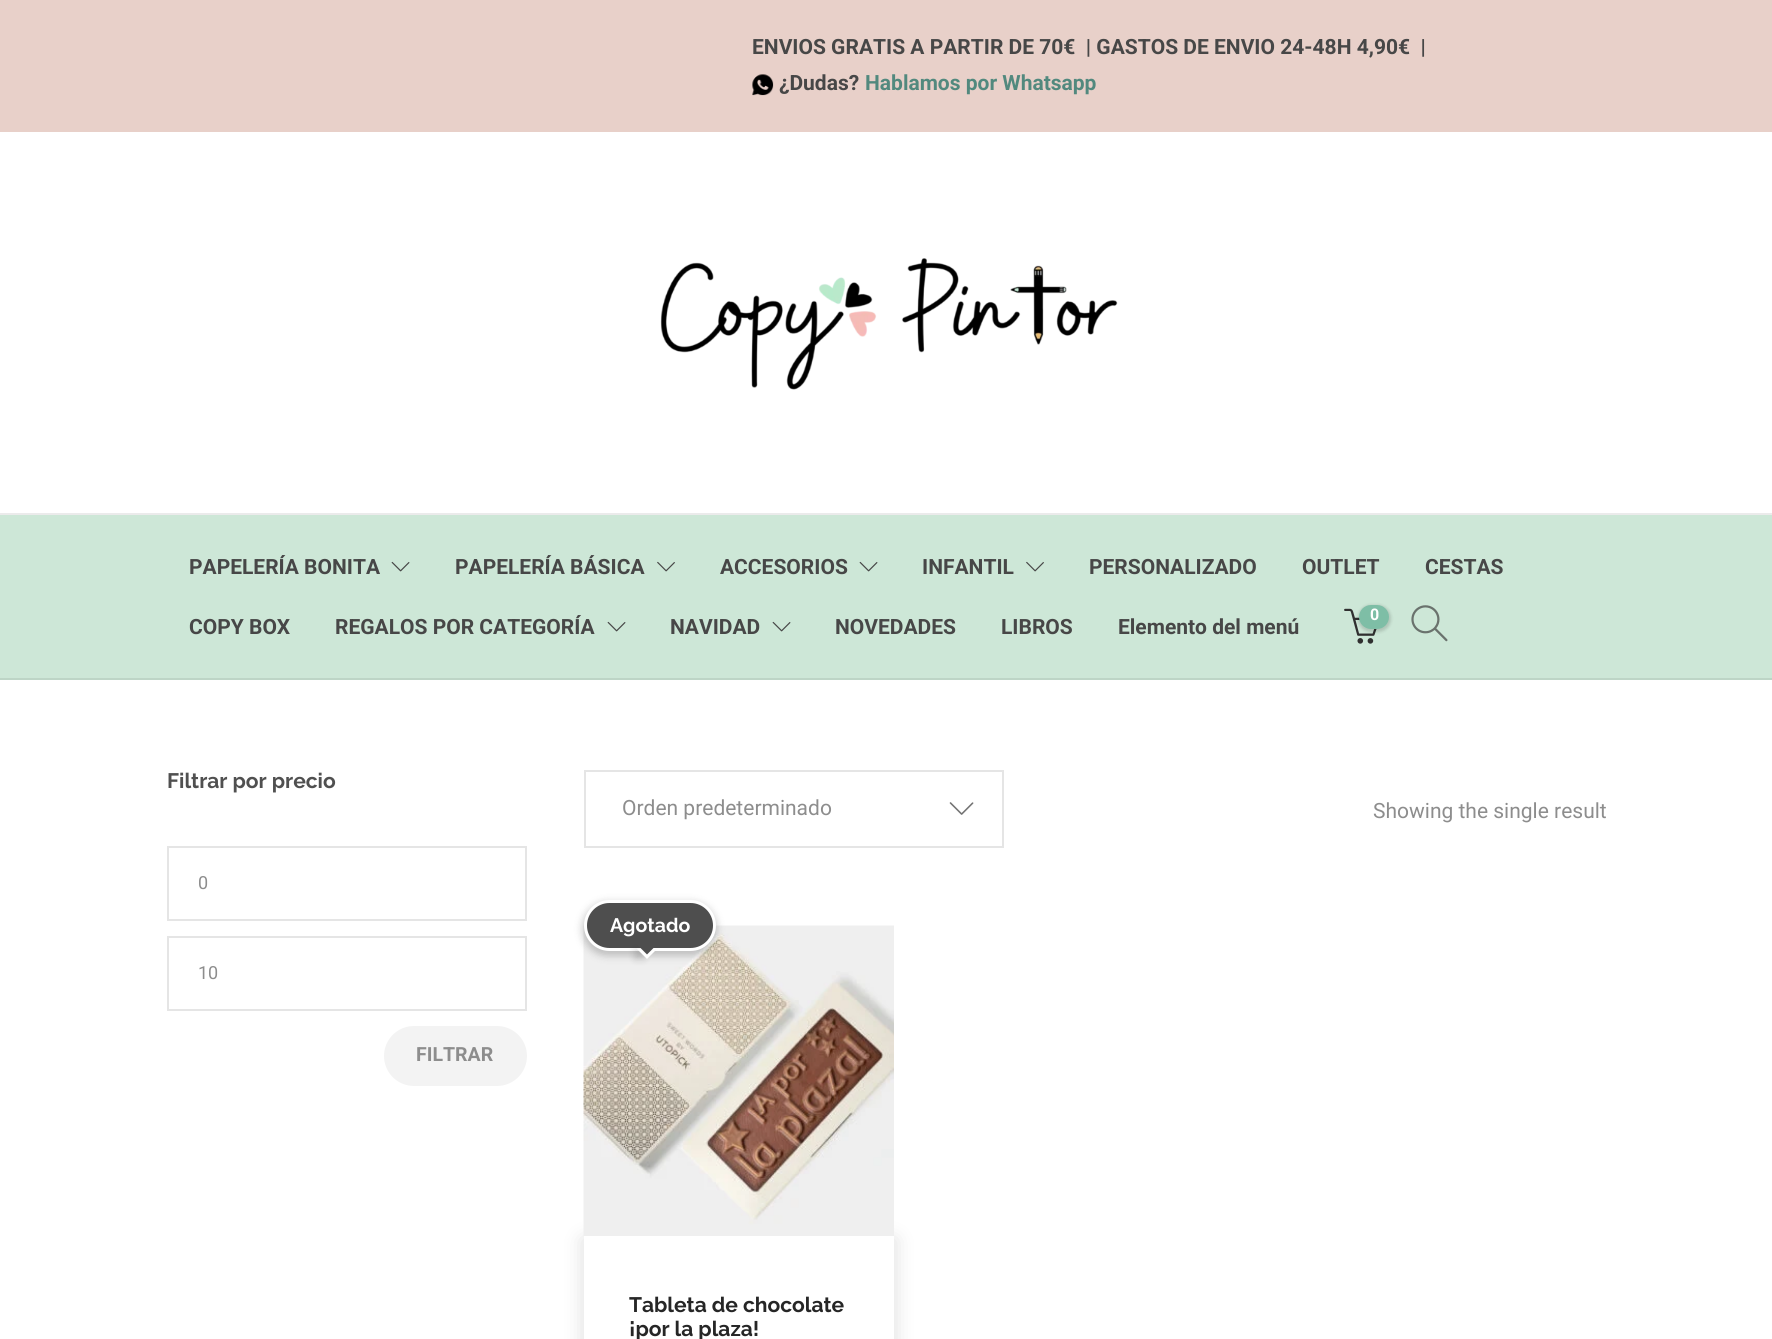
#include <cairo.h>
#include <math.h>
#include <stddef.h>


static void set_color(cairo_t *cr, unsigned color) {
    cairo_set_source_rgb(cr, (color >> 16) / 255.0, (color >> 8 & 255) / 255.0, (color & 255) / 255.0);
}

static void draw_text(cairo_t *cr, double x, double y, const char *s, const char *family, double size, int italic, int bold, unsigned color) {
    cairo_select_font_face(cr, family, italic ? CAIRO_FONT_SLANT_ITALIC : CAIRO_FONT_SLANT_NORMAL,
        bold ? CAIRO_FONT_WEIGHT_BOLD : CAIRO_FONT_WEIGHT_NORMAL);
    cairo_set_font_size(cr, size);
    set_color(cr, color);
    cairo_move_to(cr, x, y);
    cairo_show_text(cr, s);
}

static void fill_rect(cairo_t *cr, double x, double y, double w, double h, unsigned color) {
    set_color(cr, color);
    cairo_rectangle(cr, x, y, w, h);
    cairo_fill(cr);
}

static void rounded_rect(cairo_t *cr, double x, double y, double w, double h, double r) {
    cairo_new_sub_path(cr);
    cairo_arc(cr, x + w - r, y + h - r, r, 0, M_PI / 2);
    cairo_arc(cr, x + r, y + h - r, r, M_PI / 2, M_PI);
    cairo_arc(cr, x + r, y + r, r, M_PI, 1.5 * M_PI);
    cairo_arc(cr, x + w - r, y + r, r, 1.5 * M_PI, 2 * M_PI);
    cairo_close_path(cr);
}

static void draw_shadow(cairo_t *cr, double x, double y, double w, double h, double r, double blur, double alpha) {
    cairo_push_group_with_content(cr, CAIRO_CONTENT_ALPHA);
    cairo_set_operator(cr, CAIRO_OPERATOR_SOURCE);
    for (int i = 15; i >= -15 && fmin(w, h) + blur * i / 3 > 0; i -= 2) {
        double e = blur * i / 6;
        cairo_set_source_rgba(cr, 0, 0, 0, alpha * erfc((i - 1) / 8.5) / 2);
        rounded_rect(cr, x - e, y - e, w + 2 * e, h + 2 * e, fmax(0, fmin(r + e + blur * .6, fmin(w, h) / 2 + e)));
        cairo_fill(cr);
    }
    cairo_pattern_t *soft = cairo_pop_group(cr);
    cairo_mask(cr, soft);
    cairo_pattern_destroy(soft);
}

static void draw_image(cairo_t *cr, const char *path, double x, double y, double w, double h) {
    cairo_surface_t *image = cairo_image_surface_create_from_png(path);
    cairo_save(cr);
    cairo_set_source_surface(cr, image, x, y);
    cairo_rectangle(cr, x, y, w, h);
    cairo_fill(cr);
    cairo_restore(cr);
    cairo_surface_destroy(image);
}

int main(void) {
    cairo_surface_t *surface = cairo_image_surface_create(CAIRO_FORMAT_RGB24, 1772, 1339);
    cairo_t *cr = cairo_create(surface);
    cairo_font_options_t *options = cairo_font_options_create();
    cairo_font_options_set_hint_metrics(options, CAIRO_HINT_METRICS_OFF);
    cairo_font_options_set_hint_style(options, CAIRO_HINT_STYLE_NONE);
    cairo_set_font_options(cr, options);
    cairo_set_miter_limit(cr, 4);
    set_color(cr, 0xFFFFFF);
    cairo_paint(cr);
    fill_rect(cr, 0, 0, 1772, 132, 0xE8D0C9);
    draw_text(cr, 752, 54, "ENVIOS GRATIS A PARTIR DE 70€  | GASTOS DE ENVIO 24-48H 4,90€  |", "Roboto", 21, 0, 1, 0x474747);
    draw_image(cr, "assets/img1.png", 752, 74, 22, 22);
    draw_text(cr, 779, 90, "¿Dudas?", "Roboto", 21, 0, 1, 0x474747);
    draw_text(cr, 865, 90, "Hablamos por Whatsapp", "Roboto", 21, 0, 1, 0x52897E);
    fill_rect(cr, 0, 513, 1772, 2, 0xEBEBEB);
    draw_image(cr, "assets/img2.png", 660, 258, 458, 132);
    fill_rect(cr, 0, 515, 1772, 163, 0xCDE7D7);
    fill_rect(cr, 0, 678, 1772, 2, 0xBDD5C6);
    draw_text(cr, 189, 574, "PAPELERÍA BONITA", "Roboto", 21, 0, 1, 0x474747);
    draw_image(cr, "assets/img3.png", 391, 561, 19, 11);
    draw_text(cr, 455, 574, "PAPELERÍA BÁSICA", "Roboto", 21, 0, 1, 0x474747);
    draw_image(cr, "assets/img4.png", 657, 561, 18, 11);
    draw_text(cr, 720, 574, "ACCESORIOS", "Roboto", 21, 0, 1, 0x474747);
    draw_image(cr, "assets/img3.png", 859, 561, 19, 11);
    draw_text(cr, 922, 574, "INFANTIL", "Roboto", 21, 0, 1, 0x474747);
    draw_image(cr, "assets/img4.png", 1026, 561, 18, 11);
    draw_text(cr, 1089, 574, "PERSONALIZADO", "Roboto", 21, 0, 1, 0x474747);
    draw_text(cr, 1302, 574, "OUTLET", "Roboto", 21, 0, 1, 0x474747);
    draw_text(cr, 1425, 574, "CESTAS", "Roboto", 21, 0, 1, 0x474747);
    draw_text(cr, 189, 634, "COPY BOX", "Roboto", 21, 0, 1, 0x474747);
    draw_text(cr, 335, 634, "REGALOS POR CATEGORÍA", "Roboto", 21, 0, 1, 0x474747);
    draw_image(cr, "assets/img3.png", 607, 621, 19, 11);
    draw_text(cr, 670, 634, "NAVIDAD", "Roboto", 21, 0, 1, 0x474747);
    draw_image(cr, "assets/img3.png", 772, 621, 19, 11);
    draw_text(cr, 835, 634, "NOVEDADES", "Roboto", 21, 0, 1, 0x474747);
    draw_text(cr, 1001, 634, "LIBROS", "Roboto", 21, 0, 1, 0x474747);
    draw_text(cr, 1118, 634, "Elemento del menú", "Roboto", 21, 0, 1, 0x474747);
    draw_image(cr, "assets/img5.png", 1344, 608, 33, 36);
    set_color(cr, 0x000000);
    draw_shadow(cr, 1358, 605, 33, 27, 13.5, 1.5, 0.15);
    set_color(cr, 0x7EBEA6);
    rounded_rect(cr, 1359, 605, 30, 24, 12);
    cairo_fill(cr);
    draw_text(cr, 1370, 620, "0", "Roboto", 16, 0, 1, 0xFFFFFF);
    draw_image(cr, "assets/img6.png", 1411, 605, 37, 37);
    draw_text(cr, 167, 788, "Filtrar por precio", "Raleway", 21, 0, 1, 0x505050);
    cairo_rectangle(cr, 168, 847, 358, 73);
    set_color(cr, 0xE5E5E5);
    cairo_stroke(cr);
    draw_text(cr, 198, 889, "0", "Roboto", 18, 0, 0, 0x8D8D8D);
    cairo_rectangle(cr, 168, 937, 358, 73);
    set_color(cr, 0xE5E5E5);
    cairo_stroke(cr);
    draw_text(cr, 198, 979, "10", "Roboto", 18, 0, 0, 0x8D8D8D);
    set_color(cr, 0xF3F3F3);
    rounded_rect(cr, 384, 1026, 143, 60, 30);
    cairo_fill(cr);
    draw_text(cr, 416, 1061, "FILTRAR", "Roboto", 19.5, 0, 1, 0x8D8D8D);
    cairo_rectangle(cr, 585, 771, 418, 76);
    set_color(cr, 0xE5E5E5);
    cairo_stroke(cr);
    draw_text(cr, 622, 815, "Orden predeterminado", "Roboto", 21, 0, 0, 0x8D8D8D);
    draw_image(cr, "assets/img7.png", 949, 802, 25, 13);
    draw_text(cr, 1373, 818, "Showing the single result", "Roboto", 21, 0, 0, 0x8D8D8D);
    cairo_save(cr);
    cairo_set_fill_rule(cr, CAIRO_FILL_RULE_EVEN_ODD);
    cairo_new_path(cr);
    cairo_move_to(cr, 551, 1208);
    cairo_line_to(cr, 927, 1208);
    cairo_line_to(cr, 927, 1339);
    cairo_line_to(cr, 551, 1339);
    cairo_close_path(cr);
    cairo_move_to(cr, 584, 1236);
    cairo_line_to(cr, 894, 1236);
    cairo_line_to(cr, 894, 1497);
    cairo_line_to(cr, 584, 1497);
    cairo_close_path(cr);
    cairo_clip(cr);
    set_color(cr, 0x000000);
    draw_shadow(cr, 582, 1239, 314, 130, 0, 10, 0.12);
    cairo_restore(cr);
    draw_image(cr, "assets/img8.png", 583, 925, 311, 311);
    set_color(cr, 0x000000);
    draw_shadow(cr, 582, 902, 135, 54, 27, 4, 0.2);
    set_color(cr, 0x4E4E4E);
    rounded_rect(cr, 585.5, 901.5, 129, 48, 24);
    cairo_fill_preserve(cr);
    set_color(cr, 0xFFFFFF);
    cairo_set_line_width(cr, 3);
    cairo_stroke(cr);
    draw_text(cr, 610, 932, "Agotado", "Raleway", 19.5, 0, 1, 0xFFFFFF);
    set_color(cr, 0x000000);
    draw_shadow(cr, 635, 950, 9, 9, 0, 4, 0.15);
    set_color(cr, 0xFFFFFF);
    cairo_new_path(cr);
    cairo_move_to(cr, 657.5, 948.5);
    cairo_line_to(cr, 647, 959);
    cairo_line_to(cr, 647, 948.5);
    cairo_close_path(cr);
    cairo_move_to(cr, 647, 959);
    cairo_line_to(cr, 636.5, 948.5);
    cairo_line_to(cr, 647, 948.5);
    cairo_close_path(cr);
    cairo_fill(cr);
    set_color(cr, 0x4E4E4E);
    cairo_new_path(cr);
    cairo_move_to(cr, 657.5, 944);
    cairo_line_to(cr, 647, 954.5);
    cairo_line_to(cr, 647, 944);
    cairo_close_path(cr);
    cairo_move_to(cr, 647, 954.5);
    cairo_line_to(cr, 636.5, 944);
    cairo_line_to(cr, 647, 944);
    cairo_close_path(cr);
    cairo_fill(cr);
    draw_text(cr, 629, 1312, "Tableta de chocolate", "Raleway", 21, 0, 1, 0x262626);
    draw_text(cr, 629, 1336, "¡por la plaza!", "Raleway", 21, 0, 1, 0x262626);
    cairo_surface_write_to_png(surface, "output.png");
    cairo_font_options_destroy(options);
    cairo_destroy(cr);
    cairo_surface_destroy(surface);
    return 0;
}
